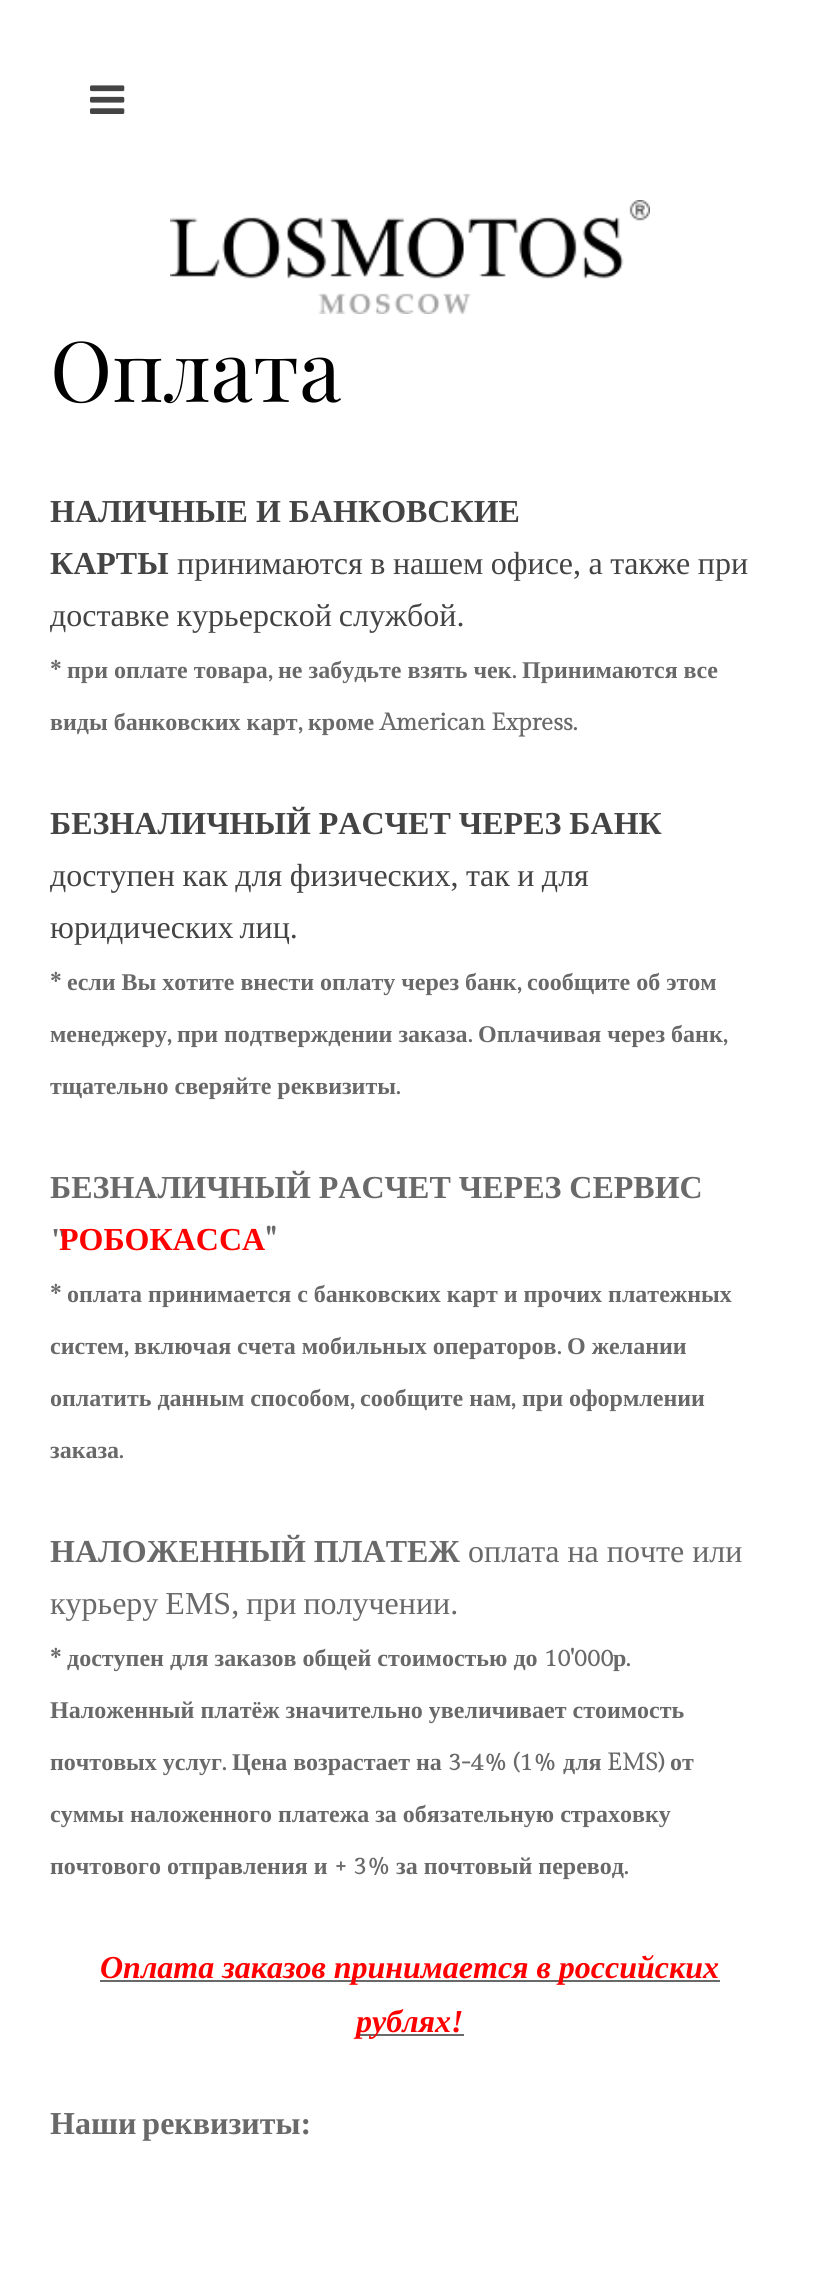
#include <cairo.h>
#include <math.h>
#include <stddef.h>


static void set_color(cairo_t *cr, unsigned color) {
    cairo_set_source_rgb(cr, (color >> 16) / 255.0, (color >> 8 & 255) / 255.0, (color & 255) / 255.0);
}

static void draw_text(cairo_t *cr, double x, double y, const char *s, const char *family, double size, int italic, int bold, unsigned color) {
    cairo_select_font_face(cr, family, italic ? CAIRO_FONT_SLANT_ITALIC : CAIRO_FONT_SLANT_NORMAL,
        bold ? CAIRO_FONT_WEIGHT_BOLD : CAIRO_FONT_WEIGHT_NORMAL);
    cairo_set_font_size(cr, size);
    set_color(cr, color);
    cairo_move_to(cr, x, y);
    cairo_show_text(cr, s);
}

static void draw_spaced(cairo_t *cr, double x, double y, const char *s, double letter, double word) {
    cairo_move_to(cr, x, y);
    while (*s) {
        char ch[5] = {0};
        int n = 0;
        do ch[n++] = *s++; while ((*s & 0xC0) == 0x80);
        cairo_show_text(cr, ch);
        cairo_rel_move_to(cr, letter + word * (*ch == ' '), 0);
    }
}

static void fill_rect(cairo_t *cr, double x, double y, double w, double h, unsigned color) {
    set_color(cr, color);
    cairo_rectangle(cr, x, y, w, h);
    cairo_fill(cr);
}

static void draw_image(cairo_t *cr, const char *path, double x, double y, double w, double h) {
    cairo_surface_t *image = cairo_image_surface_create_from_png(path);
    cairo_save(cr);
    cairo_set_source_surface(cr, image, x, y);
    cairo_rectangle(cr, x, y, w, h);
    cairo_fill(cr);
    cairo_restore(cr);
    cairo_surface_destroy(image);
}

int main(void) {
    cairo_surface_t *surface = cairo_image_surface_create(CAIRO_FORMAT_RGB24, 819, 2270);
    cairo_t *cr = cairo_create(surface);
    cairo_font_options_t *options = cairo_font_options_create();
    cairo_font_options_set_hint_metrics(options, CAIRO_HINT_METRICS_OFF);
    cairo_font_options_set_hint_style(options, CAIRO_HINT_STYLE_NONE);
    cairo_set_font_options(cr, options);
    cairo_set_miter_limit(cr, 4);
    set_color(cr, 0xFFFFFF);
    cairo_paint(cr);
    draw_image(cr, "assets/img1.png", 90, 85, 35, 29);
    draw_image(cr, "assets/img2.png", 170, 200, 480, 114);
    draw_text(cr, 50, 402, "Оплата", "Playfair Display", 84, 0, 0, 0x000000);
    draw_text(cr, 50, 522, "НАЛИЧНЫЕ И БАНКОВСКИЕ", "Liberation Serif", 32, 0, 1, 0x444444);
    cairo_select_font_face(cr, "Liberation Serif", CAIRO_FONT_SLANT_NORMAL, CAIRO_FONT_WEIGHT_NORMAL);
    draw_spaced(cr, 177, 574, "принимаются в нашем офисе, а также при", 0, -0.5);
    draw_spaced(cr, 50, 626, "доставке курьерской службой.", 0, -1);
    draw_text(cr, 50, 678, "*", "Gilda Display", 24, 0, 1, 0x696969);
    draw_text(cr, 67, 678, "при оплате товара", "Liberation Serif", 24, 0, 1, 0x696969);
    draw_text(cr, 268, 678, ",", "Gilda Display", 24, 0, 1, 0x696969);
    draw_text(cr, 278, 678, "не забудьте взять чек", "Liberation Serif", 24, 0, 1, 0x696969);
    draw_text(cr, 512, 678, ".", "Gilda Display", 24, 0, 1, 0x696969);
    draw_text(cr, 522, 678, "Принимаются все", "Liberation Serif", 24, 0, 1, 0x696969);
    draw_text(cr, 50, 730, "виды банковских карт", "Liberation Serif", 24, 0, 1, 0x696969);
    draw_text(cr, 298, 730, ",", "Gilda Display", 24, 0, 1, 0x696969);
    draw_text(cr, 308, 730, "кроме", "Liberation Serif", 24, 0, 1, 0x696969);
    draw_text(cr, 380, 730, "American Express.", "Gilda Display", 24, 0, 1, 0x696969);
    draw_text(cr, 50, 834, "БЕЗНАЛИЧНЫЙ РАСЧЕТ ЧЕРЕЗ БАНК", "Liberation Serif", 32, 0, 1, 0x444444);
    cairo_select_font_face(cr, "Liberation Serif", CAIRO_FONT_SLANT_NORMAL, CAIRO_FONT_WEIGHT_NORMAL);
    draw_spaced(cr, 50, 886, "доступен как для физических, так и для", 0, -0.5);
    draw_spaced(cr, 50, 938, "юридических лиц.", 0, -2);
    draw_text(cr, 50, 990, "*", "Gilda Display", 24, 0, 1, 0x696969);
    draw_text(cr, 67, 990, "если Вы хотите внести оплату через банк", "Liberation Serif", 24, 0, 1, 0x696969);
    draw_text(cr, 517, 990, ",", "Gilda Display", 24, 0, 1, 0x696969);
    draw_text(cr, 527, 990, "сообщите об этом", "Liberation Serif", 24, 0, 1, 0x696969);
    draw_text(cr, 50, 1042, "менеджеру", "Liberation Serif", 24, 0, 1, 0x696969);
    draw_text(cr, 167, 1042, ",", "Gilda Display", 24, 0, 1, 0x696969);
    draw_text(cr, 177, 1042, "при подтверждении заказа", "Liberation Serif", 24, 0, 1, 0x696969);
    draw_text(cr, 468, 1042, ".", "Gilda Display", 24, 0, 1, 0x696969);
    draw_text(cr, 478, 1042, "Оплачивая через банк", "Liberation Serif", 24, 0, 1, 0x696969);
    draw_text(cr, 723, 1042, ",", "Gilda Display", 24, 0, 1, 0x696969);
    draw_text(cr, 50, 1094, "тщательно сверяйте реквизиты", "Liberation Serif", 24, 0, 1, 0x696969);
    draw_text(cr, 396, 1094, ".", "Gilda Display", 24, 0, 1, 0x696969);
    draw_text(cr, 50, 1198, "БЕЗНАЛИЧНЫЙ РАСЧЕТ ЧЕРЕЗ СЕРВИС", "Liberation Serif", 32, 0, 1, 0x696969);
    draw_text(cr, 50, 1250, "\"", "Liberation Serif", 32, 0, 1, 0x696969);
    draw_text(cr, 59, 1250, "РОБОКАССА", "Liberation Serif", 32, 0, 1, 0xFF0000);
    draw_text(cr, 266, 1250, "\"", "Gilda Display", 32, 0, 1, 0x696969);
    draw_text(cr, 50, 1302, "*", "Gilda Display", 24, 0, 1, 0x696969);
    draw_text(cr, 67, 1302, "оплата принимается с банковских карт и прочих платежных", "Liberation Serif", 24, 0, 1, 0x696969);
    draw_text(cr, 50, 1354, "систем", "Liberation Serif", 24, 0, 1, 0x696969);
    draw_text(cr, 124, 1354, ",", "Gilda Display", 24, 0, 1, 0x696969);
    draw_text(cr, 134, 1354, "включая счета мобильных операторов", "Liberation Serif", 24, 0, 1, 0x696969);
    draw_text(cr, 557, 1354, ".", "Gilda Display", 24, 0, 1, 0x696969);
    draw_text(cr, 567, 1354, "О желании", "Liberation Serif", 24, 0, 1, 0x696969);
    draw_text(cr, 50, 1406, "оплатить данным способом", "Liberation Serif", 24, 0, 1, 0x696969);
    draw_text(cr, 350, 1406, ",", "Gilda Display", 24, 0, 1, 0x696969);
    draw_text(cr, 360, 1406, "сообщите нам", "Liberation Serif", 24, 0, 1, 0x696969);
    draw_text(cr, 511, 1406, ",", "Gilda Display", 24, 0, 1, 0x696969);
    draw_text(cr, 522, 1406, "при оформлении", "Liberation Serif", 24, 0, 1, 0x696969);
    draw_text(cr, 50, 1458, "заказа", "Liberation Serif", 24, 0, 1, 0x696969);
    draw_text(cr, 119, 1458, ".", "Gilda Display", 24, 0, 1, 0x696969);
    draw_text(cr, 50, 1562, "НАЛОЖЕННЫЙ ПЛАТЕЖ", "Liberation Serif", 32, 0, 1, 0x696969);
    draw_text(cr, 468, 1562, "оплата на почте или", "Liberation Serif", 32, 0, 0, 0x696969);
    draw_spaced(cr, 50, 1614, "курьеру EMS, при получении.", 0, -1);
    draw_text(cr, 50, 1666, "*", "Gilda Display", 24, 0, 1, 0x696969);
    draw_text(cr, 67, 1666, "доступен для заказов общей стоимостью до", "Liberation Serif", 24, 0, 1, 0x696969);
    draw_text(cr, 544, 1666, "10'000", "Gilda Display", 24, 0, 1, 0x696969);
    draw_text(cr, 613, 1666, "р", "Liberation Serif", 24, 0, 1, 0x696969);
    draw_text(cr, 626, 1666, ".", "Gilda Display", 24, 0, 1, 0x696969);
    draw_text(cr, 50, 1718, "Наложенный платёж значительно увеличивает стоимость", "Liberation Serif", 24, 0, 1, 0x696969);
    draw_text(cr, 50, 1770, "почтовых услуг", "Liberation Serif", 24, 0, 1, 0x696969);
    draw_text(cr, 222, 1770, ".", "Gilda Display", 24, 0, 1, 0x696969);
    draw_text(cr, 232, 1770, "Цена возрастает на", "Liberation Serif", 24, 0, 1, 0x696969);
    draw_text(cr, 448, 1770, "3-4% (1%", "Gilda Display", 24, 0, 1, 0x696969);
    draw_text(cr, 563, 1770, "для", "Liberation Serif", 24, 0, 1, 0x696969);
    draw_text(cr, 607, 1770, "EMS)", "Gilda Display", 24, 0, 1, 0x696969);
    draw_text(cr, 670, 1770, "от", "Liberation Serif", 24, 0, 1, 0x696969);
    draw_text(cr, 50, 1822, "суммы наложенного платежа за обязательную страховку", "Liberation Serif", 24, 0, 1, 0x696969);
    draw_text(cr, 50, 1874, "почтового отправления и", "Liberation Serif", 24, 0, 1, 0x696969);
    draw_text(cr, 334, 1874, "+ 3%", "Gilda Display", 24, 0, 1, 0x696969);
    draw_text(cr, 396, 1874, "за почтовый перевод", "Liberation Serif", 24, 0, 1, 0x696969);
    draw_text(cr, 624, 1874, ".", "Gilda Display", 24, 0, 1, 0x696969);
    fill_rect(cr, 100, 1980, 620, 2, 0x696969);
    draw_text(cr, 100, 1978, "Оплата заказов принимается в российских", "Liberation Serif", 32, 1, 1, 0xFF0000);
    fill_rect(cr, 356, 2034, 108, 2, 0x696969);
    draw_text(cr, 356, 2032, "рублях!", "Liberation Serif", 32, 1, 1, 0xFF0000);
    cairo_select_font_face(cr, "Liberation Serif", CAIRO_FONT_SLANT_NORMAL, CAIRO_FONT_WEIGHT_BOLD);
    set_color(cr, 0x696969);
    draw_spaced(cr, 50, 2134, "Наши реквизиты:", 0, -2);
    draw_text(cr, 50, 574, "КАРТЫ", "Liberation Serif", 32, 0, 1, 0x444444);
    cairo_surface_write_to_png(surface, "output.png");
    cairo_font_options_destroy(options);
    cairo_destroy(cr);
    cairo_surface_destroy(surface);
    return 0;
}
